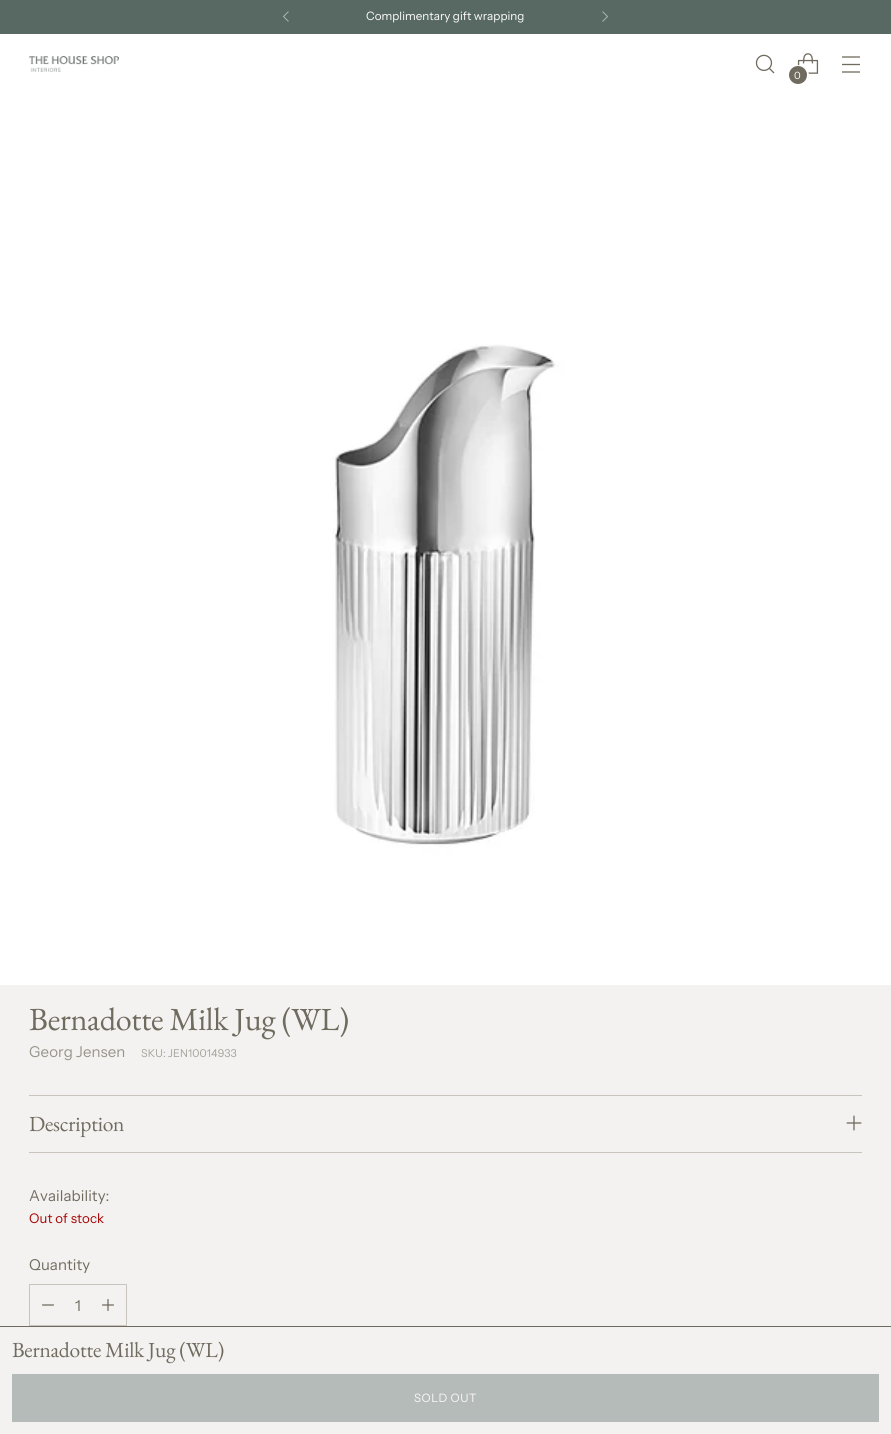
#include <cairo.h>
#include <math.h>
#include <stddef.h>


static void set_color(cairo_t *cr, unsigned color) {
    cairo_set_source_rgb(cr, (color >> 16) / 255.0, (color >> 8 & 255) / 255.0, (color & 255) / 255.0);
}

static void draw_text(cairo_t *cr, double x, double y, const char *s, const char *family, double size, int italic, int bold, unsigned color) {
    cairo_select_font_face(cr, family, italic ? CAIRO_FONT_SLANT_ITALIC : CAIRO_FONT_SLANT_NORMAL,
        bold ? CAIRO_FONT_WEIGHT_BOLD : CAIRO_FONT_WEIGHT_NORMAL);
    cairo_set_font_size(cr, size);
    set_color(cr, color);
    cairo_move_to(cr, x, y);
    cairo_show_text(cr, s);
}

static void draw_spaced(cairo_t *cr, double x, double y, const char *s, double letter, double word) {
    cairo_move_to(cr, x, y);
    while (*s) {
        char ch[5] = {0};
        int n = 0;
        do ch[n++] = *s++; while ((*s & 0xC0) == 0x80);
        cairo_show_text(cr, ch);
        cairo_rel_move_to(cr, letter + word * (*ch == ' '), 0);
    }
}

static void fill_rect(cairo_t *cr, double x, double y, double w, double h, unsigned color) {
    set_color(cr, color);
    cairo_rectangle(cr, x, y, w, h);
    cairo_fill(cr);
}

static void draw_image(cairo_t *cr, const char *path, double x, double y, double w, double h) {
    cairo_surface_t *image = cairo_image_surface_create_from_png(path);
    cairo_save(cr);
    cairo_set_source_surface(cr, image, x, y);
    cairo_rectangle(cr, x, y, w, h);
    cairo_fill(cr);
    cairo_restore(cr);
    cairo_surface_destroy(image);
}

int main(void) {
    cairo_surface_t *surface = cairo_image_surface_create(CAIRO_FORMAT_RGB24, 891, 1434);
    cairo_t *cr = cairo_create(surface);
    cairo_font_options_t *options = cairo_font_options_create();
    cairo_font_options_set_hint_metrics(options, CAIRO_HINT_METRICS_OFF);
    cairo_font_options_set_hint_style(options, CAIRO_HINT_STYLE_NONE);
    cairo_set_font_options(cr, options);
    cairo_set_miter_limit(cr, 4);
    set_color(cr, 0xF4F2F1);
    cairo_paint(cr);
    fill_rect(cr, 0, 0, 891, 34, 0x576962);
    cairo_new_path(cr);
    cairo_move_to(cr, 288.5, 11.5);
    cairo_line_to(cr, 283.5, 16.5);
    cairo_line_to(cr, 288.5, 21.5);
    set_color(cr, 0xABB4B1);
    cairo_set_line_width(cr, 1);
    cairo_stroke(cr);
    cairo_new_path(cr);
    cairo_move_to(cr, 602.5, 21.5);
    cairo_line_to(cr, 607.5, 16.5);
    cairo_line_to(cr, 602.5, 11.5);
    cairo_stroke(cr);
    cairo_select_font_face(cr, "Instrument Sans", CAIRO_FONT_SLANT_NORMAL, CAIRO_FONT_WEIGHT_NORMAL);
    cairo_set_font_size(cr, 11.6);
    set_color(cr, 0xFFFFFF);
    draw_spaced(cr, 366, 20, "Complimentary gift wrapping", 0.05, 0);
    fill_rect(cr, 0, 34, 891, 60, 0xFFFFFF);
    draw_image(cr, "assets/img1.png", 29, 56, 90, 16);
    draw_image(cr, "assets/img2.png", 755, 54, 20, 20);
    cairo_new_path(cr);
    cairo_move_to(cr, 842, 64.5);
    cairo_line_to(cr, 860, 64.5);
    cairo_move_to(cr, 842, 57);
    cairo_line_to(cr, 860, 57);
    cairo_move_to(cr, 842, 72);
    cairo_line_to(cr, 860, 72);
    set_color(cr, 0x706B5F);
    cairo_set_line_width(cr, 1.3);
    cairo_stroke(cr);
    draw_image(cr, "assets/img3.png", 797, 53, 22, 21);
    cairo_arc(cr, 798.5, 75.5, 9.5, 0, 2 * M_PI);
    set_color(cr, 0xFFFFFF);
    cairo_set_line_width(cr, 2);
    cairo_stroke(cr);
    set_color(cr, 0x706B5F);
    cairo_arc(cr, 798, 75, 9, 0, 2 * M_PI);
    cairo_fill(cr);
    cairo_set_font_size(cr, 10);
    set_color(cr, 0xFFFFFF);
    draw_spaced(cr, 794, 79, "0", 0.1, 0);
    draw_image(cr, "assets/img4.png", 0, 94, 891, 891);
    cairo_select_font_face(cr, "EB Garamond", CAIRO_FONT_SLANT_NORMAL, CAIRO_FONT_WEIGHT_NORMAL);
    cairo_set_font_size(cr, 32.25);
    set_color(cr, 0x706B5F);
    draw_spaced(cr, 29, 1030, "Bernadotte Milk Jug (WL)", -0.3, 0);
    cairo_select_font_face(cr, "Instrument Sans", CAIRO_FONT_SLANT_NORMAL, CAIRO_FONT_WEIGHT_NORMAL);
    cairo_set_font_size(cr, 15);
    set_color(cr, 0x98948B);
    draw_spaced(cr, 29, 1057, "Georg Jensen", 0.1, 0);
    cairo_set_font_size(cr, 10.75);
    set_color(cr, 0xA5A199);
    draw_spaced(cr, 141, 1057, "SKU: JEN10014933", 0.1, 0);
    fill_rect(cr, 29, 1095, 833, 1, 0xC9C5BE);
    fill_rect(cr, 29, 1152, 833, 1, 0xC9C5BE);
    cairo_select_font_face(cr, "EB Garamond", CAIRO_FONT_SLANT_NORMAL, CAIRO_FONT_WEIGHT_NORMAL);
    cairo_set_font_size(cr, 21.5);
    set_color(cr, 0x706B5F);
    draw_spaced(cr, 29, 1131, "Description", -0.25, 0);
    draw_image(cr, "assets/img5.png", 846, 1115, 16, 16);
    cairo_select_font_face(cr, "Instrument Sans", CAIRO_FONT_SLANT_NORMAL, CAIRO_FONT_WEIGHT_NORMAL);
    cairo_set_font_size(cr, 15);
    draw_spaced(cr, 29, 1201, "Availability:", 0.1, 0);
    cairo_set_font_size(cr, 13.25);
    set_color(cr, 0xA70100);
    draw_spaced(cr, 29, 1223, "Out of stock", 0.1, 0);
    cairo_set_font_size(cr, 15);
    set_color(cr, 0x706B5F);
    draw_spaced(cr, 29, 1270, "Quantity", 0.1, 0);
    cairo_rectangle(cr, 29.5, 1284.5, 97, 41);
    set_color(cr, 0xC9C5BE);
    cairo_set_line_width(cr, 1);
    cairo_stroke(cr);
    draw_image(cr, "assets/img6.png", 42, 1304, 12, 2);
    draw_text(cr, 75, 1311, "1", "Instrument Sans", 15, 0, 0, 0x706B5F);
    draw_image(cr, "assets/img7.png", 102, 1299, 12, 12);
    fill_rect(cr, 0, 1326, 891, 1, 0x706B5F);
    cairo_select_font_face(cr, "EB Garamond", CAIRO_FONT_SLANT_NORMAL, CAIRO_FONT_WEIGHT_NORMAL);
    cairo_set_font_size(cr, 21.5);
    draw_spaced(cr, 12, 1357, "Bernadotte Milk Jug (WL)", -0.25, 0);
    cairo_save(cr);
    cairo_rectangle(cr, 12, 1374, 867, 48);
    cairo_clip(cr);
    set_color(cr, 0xB5BBB8);
    cairo_new_path(cr);
    cairo_move_to(cr, -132, 1374);
    cairo_line_to(cr, 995, 1374);
    cairo_line_to(cr, 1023, 1422);
    cairo_line_to(cr, -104, 1422);
    cairo_close_path(cr);
    cairo_fill(cr);
    cairo_restore(cr);
    cairo_select_font_face(cr, "Instrument Sans", CAIRO_FONT_SLANT_NORMAL, CAIRO_FONT_WEIGHT_NORMAL);
    cairo_set_font_size(cr, 11.6);
    set_color(cr, 0xF8F7F7);
    draw_spaced(cr, 414, 1402, "SOLD OUT", 0.5, 0);
    cairo_surface_write_to_png(surface, "output.png");
    cairo_font_options_destroy(options);
    cairo_destroy(cr);
    cairo_surface_destroy(surface);
    return 0;
}
